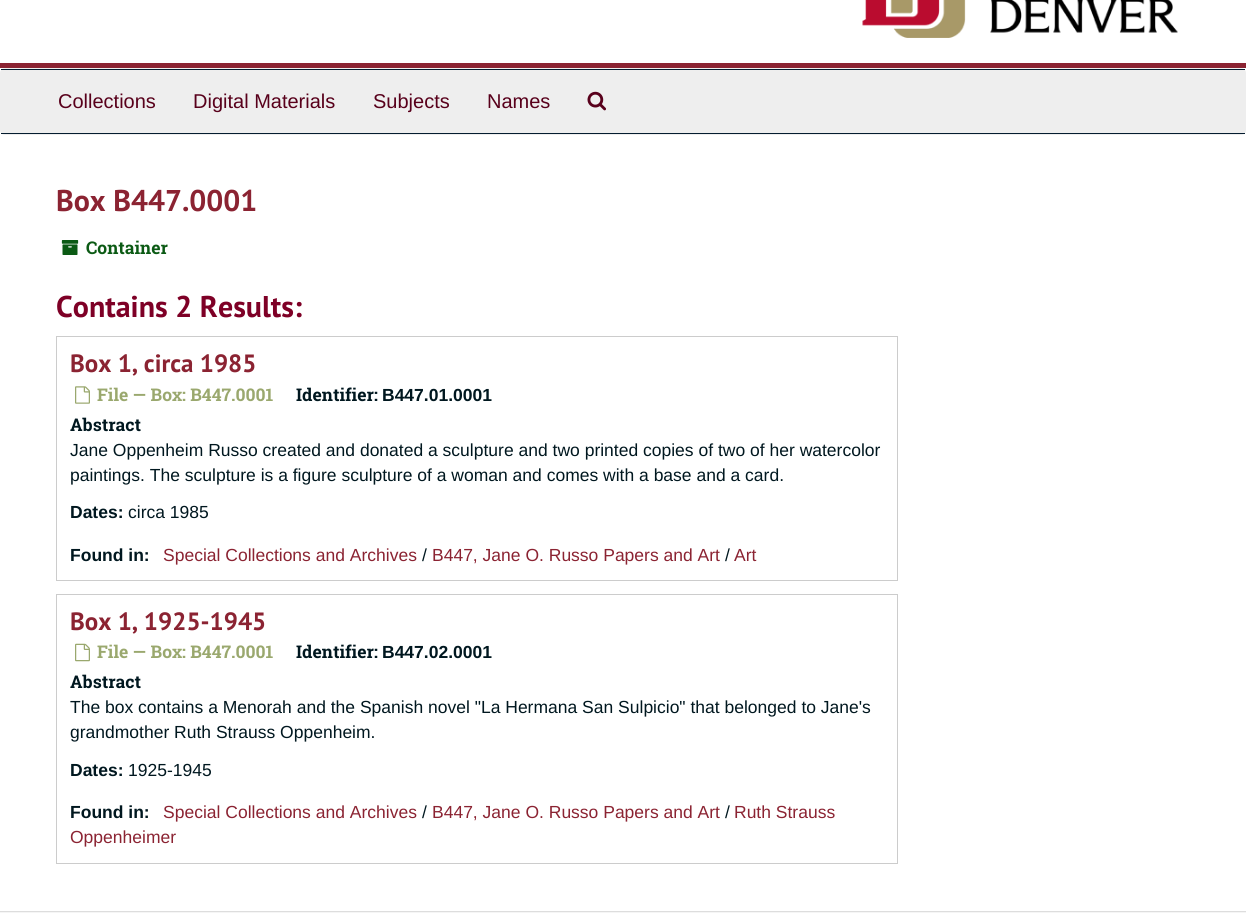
#include <cairo.h>
#include <math.h>
#include <stddef.h>


static void set_color(cairo_t *cr, unsigned color) {
    cairo_set_source_rgb(cr, (color >> 16) / 255.0, (color >> 8 & 255) / 255.0, (color & 255) / 255.0);
}

static void draw_text(cairo_t *cr, double x, double y, const char *s, const char *family, double size, int italic, int bold, unsigned color) {
    cairo_select_font_face(cr, family, italic ? CAIRO_FONT_SLANT_ITALIC : CAIRO_FONT_SLANT_NORMAL,
        bold ? CAIRO_FONT_WEIGHT_BOLD : CAIRO_FONT_WEIGHT_NORMAL);
    cairo_set_font_size(cr, size);
    set_color(cr, color);
    cairo_move_to(cr, x, y);
    cairo_show_text(cr, s);
}

static void fill_rect(cairo_t *cr, double x, double y, double w, double h, unsigned color) {
    set_color(cr, color);
    cairo_rectangle(cr, x, y, w, h);
    cairo_fill(cr);
}

static void rounded_rect(cairo_t *cr, double x, double y, double w, double h, double r) {
    cairo_new_sub_path(cr);
    cairo_arc(cr, x + w - r, y + h - r, r, 0, M_PI / 2);
    cairo_arc(cr, x + r, y + h - r, r, M_PI / 2, M_PI);
    cairo_arc(cr, x + r, y + r, r, M_PI, 1.5 * M_PI);
    cairo_arc(cr, x + w - r, y + r, r, 1.5 * M_PI, 2 * M_PI);
    cairo_close_path(cr);
}

static void draw_image(cairo_t *cr, const char *path, double x, double y, double w, double h) {
    cairo_surface_t *image = cairo_image_surface_create_from_png(path);
    cairo_save(cr);
    cairo_set_source_surface(cr, image, x, y);
    cairo_rectangle(cr, x, y, w, h);
    cairo_fill(cr);
    cairo_restore(cr);
    cairo_surface_destroy(image);
}

int main(void) {
    cairo_surface_t *surface = cairo_image_surface_create(CAIRO_FORMAT_RGB24, 1246, 913);
    cairo_t *cr = cairo_create(surface);
    cairo_font_options_t *options = cairo_font_options_create();
    cairo_font_options_set_hint_metrics(options, CAIRO_HINT_METRICS_OFF);
    cairo_font_options_set_hint_style(options, CAIRO_HINT_STYLE_NONE);
    cairo_set_font_options(cr, options);
    cairo_set_miter_limit(cr, 4);
    set_color(cr, 0xFFFFFF);
    cairo_paint(cr);
    fill_rect(cr, 0, 63, 1246, 5, 0x8B2332);
    draw_image(cr, "assets/img1.png", 862, 0, 316, 38);
    rounded_rect(cr, 0.5, 68.5, 1245, 66, 4.5);
    set_color(cr, 0xEEEEEE);
    cairo_set_line_width(cr, 1);
    cairo_stroke(cr);
    fill_rect(cr, 1, 70, 1244, 63, 0xEEEEEE);
    fill_rect(cr, 1, 69, 1244, 1, 0x041C2F);
    fill_rect(cr, 1, 133, 1244, 1, 0x041C2F);
    draw_text(cr, 58, 108, "Collections", "Liberation Sans", 20, 0, 0, 0x58001B);
    draw_text(cr, 193, 108, "Digital Materials", "Liberation Sans", 20, 0, 0, 0x58001B);
    draw_text(cr, 373, 108, "Subjects", "Liberation Sans", 20, 0, 0, 0x58001B);
    draw_text(cr, 487, 108, "Names", "Liberation Sans", 20, 0, 0, 0x58001B);
    draw_image(cr, "assets/img2.png", 587, 91, 19, 20);
    draw_text(cr, 56, 211, "Box B447.0001", "PT Sans", 30, 0, 1, 0x8B2332);
    draw_image(cr, "assets/img3.png", 61, 240, 18, 15);
    draw_text(cr, 86, 254, "Container", "Roboto Slab", 17.5, 0, 1, 0x0B5A14);
    draw_text(cr, 56, 317, "Contains 2 Results:", "PT Sans", 30, 0, 1, 0x7E0026);
    cairo_rectangle(cr, 56.5, 336.5, 841, 244);
    set_color(cr, 0xCCCCCC);
    cairo_stroke(cr);
    draw_text(cr, 70, 372, "Box 1, circa 1985", "PT Sans", 25, 0, 1, 0x8B2332);
    draw_image(cr, "assets/img4.png", 75, 386, 15, 18);
    draw_text(cr, 97, 401, "File — Box: B447.0001", "Roboto Slab", 17.5, 0, 1, 0x9AA86E);
    draw_text(cr, 296, 401, "Identifier:", "Roboto Slab", 17.5, 0, 1, 0x00171F);
    draw_text(cr, 382, 401, "B447.01.0001", "Liberation Sans", 17.5, 0, 1, 0x00171F);
    draw_text(cr, 70, 431, "Abstract", "Roboto Slab", 17.5, 0, 1, 0x00171F);
    draw_text(cr, 70, 456, "Jane Oppenheim Russo created and donated a sculpture and two printed copies of two of her watercolor", "Liberation Sans", 17.5, 0, 0, 0x00171F);
    draw_text(cr, 70, 481, "paintings. The sculpture is a figure sculpture of a woman and comes with a base and a card.", "Liberation Sans", 17.5, 0, 0, 0x00171F);
    draw_text(cr, 70, 518, "Dates:", "Liberation Sans", 17.5, 0, 1, 0x00171F);
    draw_text(cr, 128, 518, "circa 1985", "Liberation Sans", 17.5, 0, 0, 0x00171F);
    draw_text(cr, 70, 561, "Found in:", "Liberation Sans", 17.5, 0, 1, 0x00171F);
    draw_text(cr, 163, 561, "Special Collections and Archives", "Liberation Sans", 17.5, 0, 0, 0x8B2332);
    draw_text(cr, 422, 561, "/", "Liberation Sans", 17.5, 0, 0, 0x00171F);
    draw_text(cr, 432, 561, "B447, Jane O. Russo Papers and Art", "Liberation Sans", 17.5, 0, 0, 0x8B2332);
    draw_text(cr, 725, 561, "/", "Liberation Sans", 17.5, 0, 0, 0x00171F);
    draw_text(cr, 734, 561, "Art", "Liberation Sans", 17.5, 0, 0, 0x8B2332);
    cairo_rectangle(cr, 56.5, 594.5, 841, 269);
    set_color(cr, 0xCCCCCC);
    cairo_stroke(cr);
    draw_text(cr, 70, 630, "Box 1, 1925-1945", "PT Sans", 25, 0, 1, 0x8B2332);
    draw_image(cr, "assets/img5.png", 75, 643, 15, 19);
    draw_text(cr, 97, 658, "File — Box: B447.0001", "Roboto Slab", 17.5, 0, 1, 0x9AA86E);
    draw_text(cr, 296, 658, "Identifier:", "Roboto Slab", 17.5, 0, 1, 0x00171F);
    draw_text(cr, 382, 658, "B447.02.0001", "Liberation Sans", 17.5, 0, 1, 0x00171F);
    draw_text(cr, 70, 688, "Abstract", "Roboto Slab", 17.5, 0, 1, 0x00171F);
    draw_text(cr, 70, 713, "The box contains a Menorah and the Spanish novel \"La Hermana San Sulpicio\" that belonged to Jane's", "Liberation Sans", 17.5, 0, 0, 0x00171F);
    draw_text(cr, 70, 738, "grandmother Ruth Strauss Oppenheim.", "Liberation Sans", 17.5, 0, 0, 0x00171F);
    draw_text(cr, 70, 776, "Dates:", "Liberation Sans", 17.5, 0, 1, 0x00171F);
    draw_text(cr, 128, 776, "1925-1945", "Liberation Sans", 17.5, 0, 0, 0x00171F);
    draw_text(cr, 70, 818, "Found in:", "Liberation Sans", 17.5, 0, 1, 0x00171F);
    draw_text(cr, 163, 818, "Special Collections and Archives", "Liberation Sans", 17.5, 0, 0, 0x8B2332);
    draw_text(cr, 422, 818, "/", "Liberation Sans", 17.5, 0, 0, 0x00171F);
    draw_text(cr, 432, 818, "B447, Jane O. Russo Papers and Art", "Liberation Sans", 17.5, 0, 0, 0x8B2332);
    draw_text(cr, 725, 818, "/", "Liberation Sans", 17.5, 0, 0, 0x00171F);
    draw_text(cr, 734, 818, "Ruth Strauss", "Liberation Sans", 17.5, 0, 0, 0x8B2332);
    draw_text(cr, 70, 843, "Oppenheimer", "Liberation Sans", 17.5, 0, 0, 0x8B2332);
    fill_rect(cr, 0, 912, 1246, 1, 0xF5F5F5);
    fill_rect(cr, 0, 911, 1246, 1, 0xDDDDDD);
    cairo_surface_write_to_png(surface, "output.png");
    cairo_font_options_destroy(options);
    cairo_destroy(cr);
    cairo_surface_destroy(surface);
    return 0;
}
